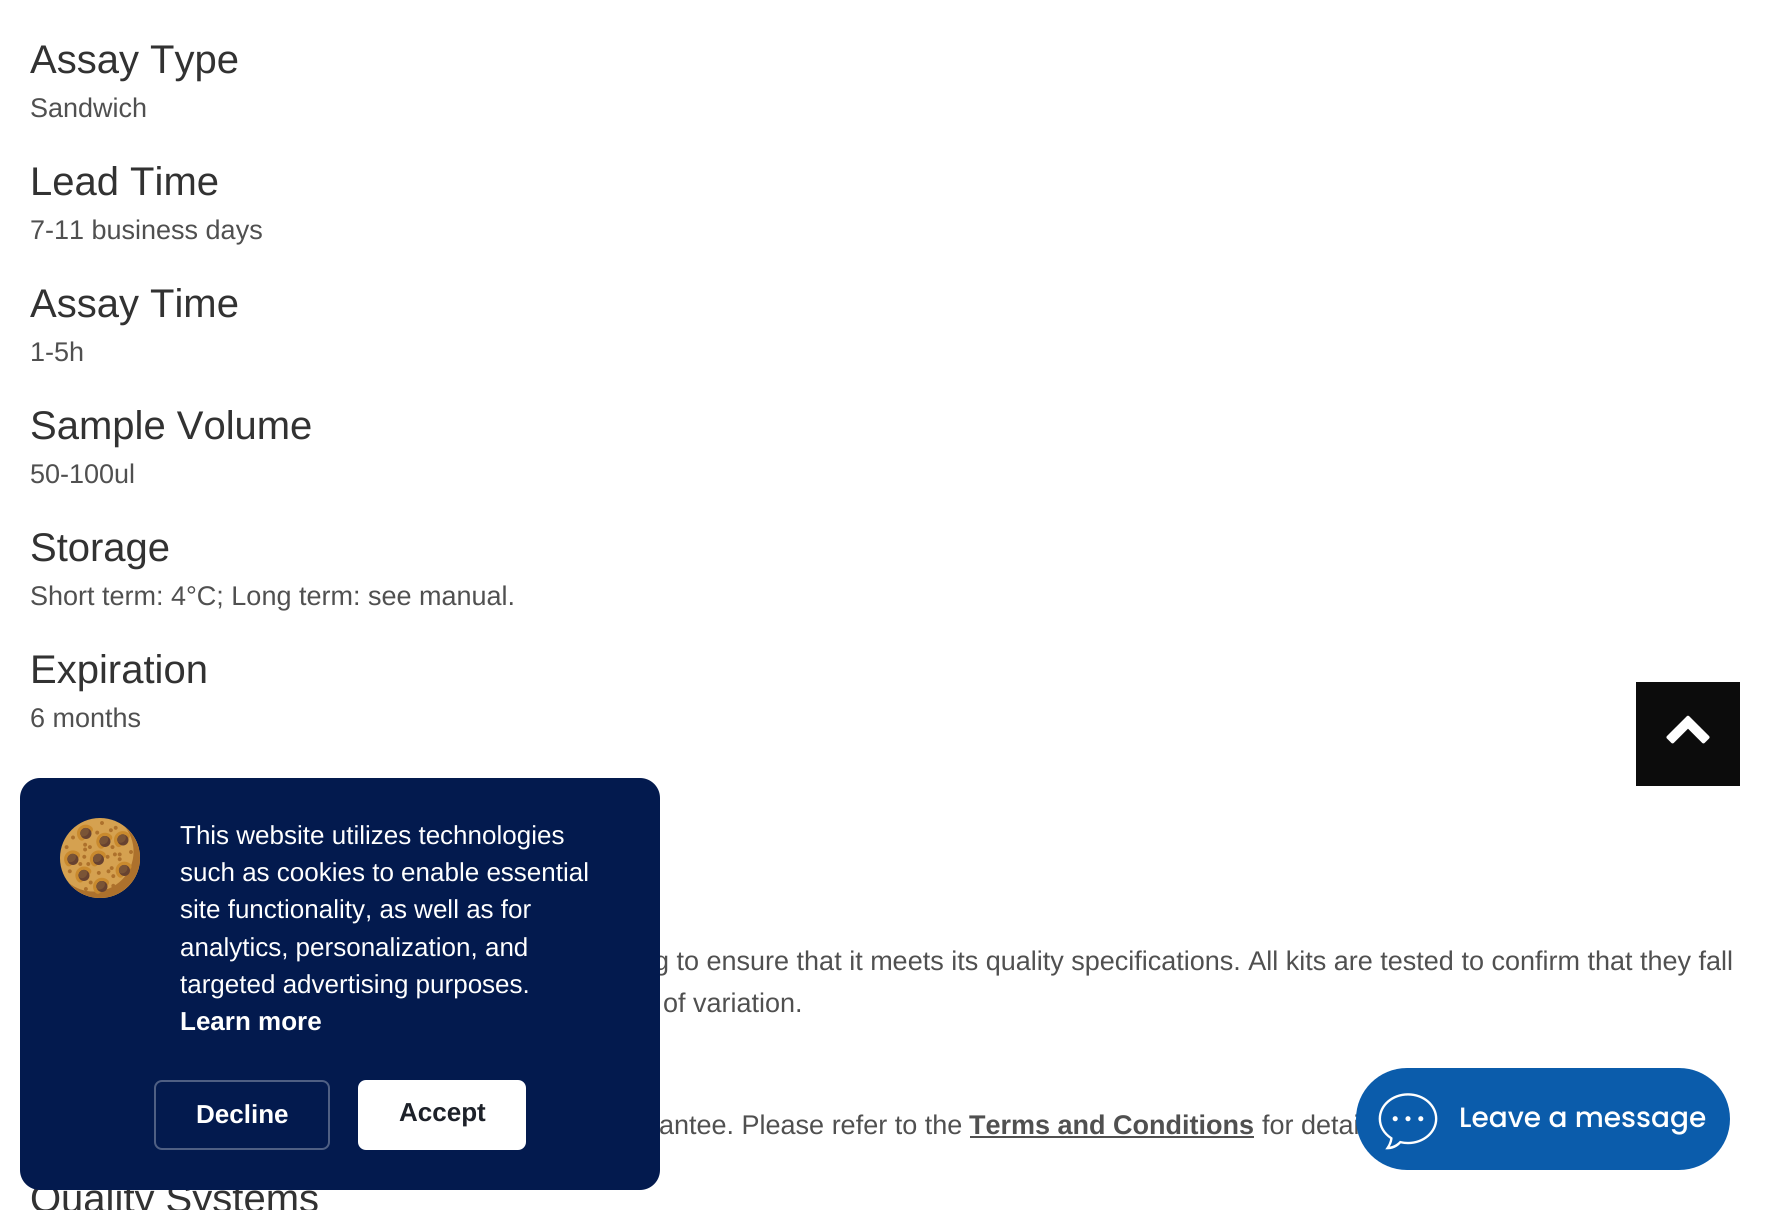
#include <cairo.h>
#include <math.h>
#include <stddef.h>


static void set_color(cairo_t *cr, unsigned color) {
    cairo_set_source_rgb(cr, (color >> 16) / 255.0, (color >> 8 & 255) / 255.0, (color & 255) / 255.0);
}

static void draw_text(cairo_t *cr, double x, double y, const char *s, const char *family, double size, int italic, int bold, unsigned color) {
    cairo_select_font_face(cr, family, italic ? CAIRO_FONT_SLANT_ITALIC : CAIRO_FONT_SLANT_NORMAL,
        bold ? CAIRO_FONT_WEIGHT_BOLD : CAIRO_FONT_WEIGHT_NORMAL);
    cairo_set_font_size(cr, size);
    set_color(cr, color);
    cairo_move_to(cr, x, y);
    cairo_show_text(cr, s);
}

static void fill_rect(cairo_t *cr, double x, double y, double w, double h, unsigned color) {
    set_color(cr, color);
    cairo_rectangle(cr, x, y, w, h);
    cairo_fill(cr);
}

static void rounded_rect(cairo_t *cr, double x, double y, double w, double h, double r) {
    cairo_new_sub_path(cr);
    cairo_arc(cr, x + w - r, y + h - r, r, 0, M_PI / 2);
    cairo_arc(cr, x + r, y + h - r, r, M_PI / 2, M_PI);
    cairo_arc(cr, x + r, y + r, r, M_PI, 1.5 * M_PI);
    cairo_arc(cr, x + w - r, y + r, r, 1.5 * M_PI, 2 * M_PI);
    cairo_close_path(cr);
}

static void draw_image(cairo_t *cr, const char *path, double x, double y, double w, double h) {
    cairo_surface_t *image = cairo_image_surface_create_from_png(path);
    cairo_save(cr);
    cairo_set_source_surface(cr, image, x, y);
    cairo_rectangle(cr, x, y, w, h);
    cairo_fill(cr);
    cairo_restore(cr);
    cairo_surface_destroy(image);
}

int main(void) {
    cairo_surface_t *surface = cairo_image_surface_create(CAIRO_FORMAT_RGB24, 1770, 1210);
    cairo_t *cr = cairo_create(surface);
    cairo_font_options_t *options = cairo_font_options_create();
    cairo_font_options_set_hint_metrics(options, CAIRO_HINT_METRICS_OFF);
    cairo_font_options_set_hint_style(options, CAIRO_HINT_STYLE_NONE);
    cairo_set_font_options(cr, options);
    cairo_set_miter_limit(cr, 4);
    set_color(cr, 0xFFFFFF);
    cairo_paint(cr);
    draw_text(cr, 30, 73, "Assay Type", "Arimo", 40, 0, 0, 0x323232);
    draw_text(cr, 30, 117, "Sandwich", "Arimo", 27, 0, 0, 0x505050);
    draw_text(cr, 30, 195, "Lead Time", "Arimo", 40, 0, 0, 0x323232);
    draw_text(cr, 30, 239, "7-11 business days", "Arimo", 27, 0, 0, 0x505050);
    draw_text(cr, 30, 317, "Assay Time", "Arimo", 40, 0, 0, 0x323232);
    draw_text(cr, 30, 361, "1-5h", "Arimo", 27, 0, 0, 0x505050);
    draw_text(cr, 30, 439, "Sample Volume", "Arimo", 40, 0, 0, 0x323232);
    draw_text(cr, 30, 483, "50-100ul", "Arimo", 27, 0, 0, 0x505050);
    draw_text(cr, 30, 561, "Storage", "Arimo", 40, 0, 0, 0x323232);
    draw_text(cr, 30, 605, "Short term: 4°C; Long term: see manual.", "Arimo", 27, 0, 0, 0x505050);
    draw_text(cr, 30, 683, "Expiration", "Arimo", 40, 0, 0, 0x323232);
    draw_text(cr, 30, 727, "6 months", "Arimo", 27, 0, 0, 0x505050);
    draw_text(cr, 654, 970, "g to ensure that it meets its quality specifications. All kits are tested to confirm that they fall", "Arimo", 27, 0, 0, 0x505050);
    draw_text(cr, 663, 1012, "of variation.", "Arimo", 27, 0, 0, 0x505050);
    draw_text(cr, 659, 1134, "antee. Please refer to the", "Arimo", 27, 0, 0, 0x505050);
    draw_text(cr, 969, 1134, "Terms and Conditions", "Arimo", 27, 0, 1, 0x505050);
    fill_rect(cr, 970, 1136, 284, 2, 0x505050);
    draw_text(cr, 1262, 1134, "for detai", "Arimo", 27, 0, 0, 0x505050);
    draw_text(cr, 30, 1212, "Quality Systems", "Arimo", 40, 0, 0, 0x323232);
    fill_rect(cr, 1636, 682, 104, 104, 0x0C0C0C);
    draw_image(cr, "assets/img1.png", 1666, 715, 44, 29);
    set_color(cr, 0x031A4E);
    rounded_rect(cr, 20, 778, 640, 412, 20);
    cairo_fill(cr);
    draw_image(cr, "assets/img2.png", 60, 818, 80, 80);
    draw_text(cr, 180, 844, "This website utilizes technologies", "Arimo", 26, 0, 0, 0xFFFFFF);
    draw_text(cr, 180, 881, "such as cookies to enable essential", "Arimo", 26, 0, 0, 0xFFFFFF);
    draw_text(cr, 180, 918, "site functionality, as well as for", "Arimo", 26, 0, 0, 0xFFFFFF);
    draw_text(cr, 180, 956, "analytics, personalization, and", "Arimo", 26, 0, 0, 0xFFFFFF);
    draw_text(cr, 180, 993, "targeted advertising purposes.", "Arimo", 26, 0, 0, 0xFFFFFF);
    draw_text(cr, 180, 1030, "Learn more", "Arimo", 26, 0, 1, 0xFFFFFF);
    rounded_rect(cr, 155, 1081, 174, 68, 7);
    set_color(cr, 0x4F5F83);
    cairo_stroke(cr);
    draw_text(cr, 196, 1123, "Decline", "Arimo", 26, 0, 1, 0xFFFFFF);
    rounded_rect(cr, 358, 1080, 168, 70, 8);
    cairo_fill(cr);
    draw_text(cr, 399, 1121, "Accept", "Arimo", 26, 0, 1, 0x1D2129);
    set_color(cr, 0x0B5CAB);
    rounded_rect(cr, 1356, 1068, 374, 102, 51);
    cairo_fill(cr);
    draw_image(cr, "assets/img3.png", 1378, 1093, 60, 57);
    draw_text(cr, 1459, 1127, "Leave a message", "Poppins Medium", 28, 0, 0, 0xFFFFFF);
    cairo_surface_write_to_png(surface, "output.png");
    cairo_font_options_destroy(options);
    cairo_destroy(cr);
    cairo_surface_destroy(surface);
    return 0;
}
